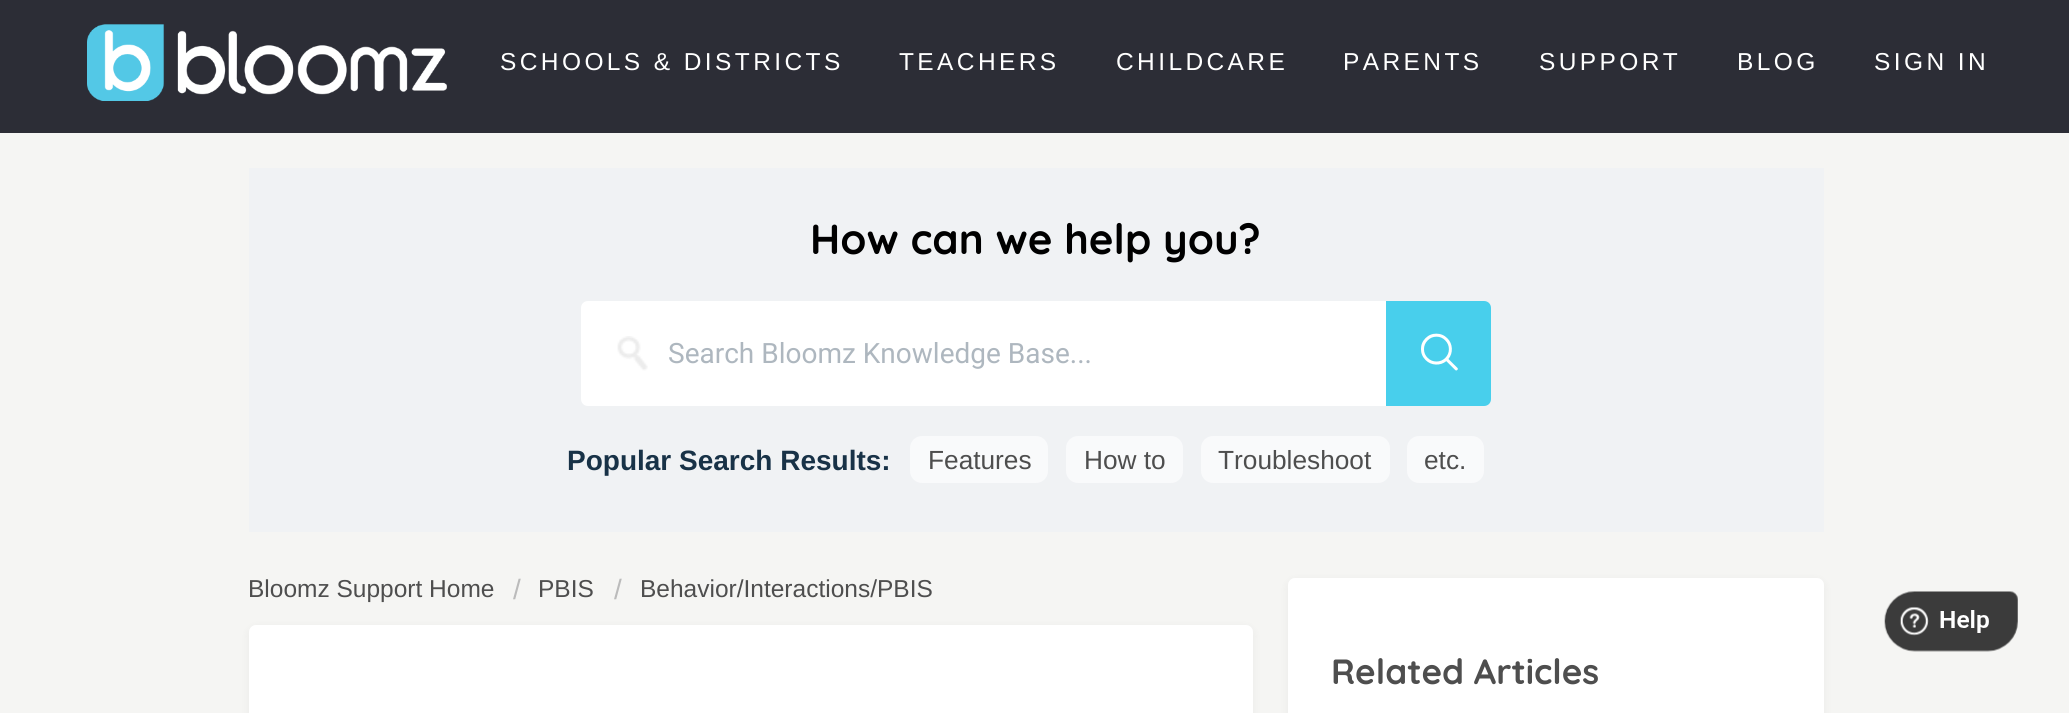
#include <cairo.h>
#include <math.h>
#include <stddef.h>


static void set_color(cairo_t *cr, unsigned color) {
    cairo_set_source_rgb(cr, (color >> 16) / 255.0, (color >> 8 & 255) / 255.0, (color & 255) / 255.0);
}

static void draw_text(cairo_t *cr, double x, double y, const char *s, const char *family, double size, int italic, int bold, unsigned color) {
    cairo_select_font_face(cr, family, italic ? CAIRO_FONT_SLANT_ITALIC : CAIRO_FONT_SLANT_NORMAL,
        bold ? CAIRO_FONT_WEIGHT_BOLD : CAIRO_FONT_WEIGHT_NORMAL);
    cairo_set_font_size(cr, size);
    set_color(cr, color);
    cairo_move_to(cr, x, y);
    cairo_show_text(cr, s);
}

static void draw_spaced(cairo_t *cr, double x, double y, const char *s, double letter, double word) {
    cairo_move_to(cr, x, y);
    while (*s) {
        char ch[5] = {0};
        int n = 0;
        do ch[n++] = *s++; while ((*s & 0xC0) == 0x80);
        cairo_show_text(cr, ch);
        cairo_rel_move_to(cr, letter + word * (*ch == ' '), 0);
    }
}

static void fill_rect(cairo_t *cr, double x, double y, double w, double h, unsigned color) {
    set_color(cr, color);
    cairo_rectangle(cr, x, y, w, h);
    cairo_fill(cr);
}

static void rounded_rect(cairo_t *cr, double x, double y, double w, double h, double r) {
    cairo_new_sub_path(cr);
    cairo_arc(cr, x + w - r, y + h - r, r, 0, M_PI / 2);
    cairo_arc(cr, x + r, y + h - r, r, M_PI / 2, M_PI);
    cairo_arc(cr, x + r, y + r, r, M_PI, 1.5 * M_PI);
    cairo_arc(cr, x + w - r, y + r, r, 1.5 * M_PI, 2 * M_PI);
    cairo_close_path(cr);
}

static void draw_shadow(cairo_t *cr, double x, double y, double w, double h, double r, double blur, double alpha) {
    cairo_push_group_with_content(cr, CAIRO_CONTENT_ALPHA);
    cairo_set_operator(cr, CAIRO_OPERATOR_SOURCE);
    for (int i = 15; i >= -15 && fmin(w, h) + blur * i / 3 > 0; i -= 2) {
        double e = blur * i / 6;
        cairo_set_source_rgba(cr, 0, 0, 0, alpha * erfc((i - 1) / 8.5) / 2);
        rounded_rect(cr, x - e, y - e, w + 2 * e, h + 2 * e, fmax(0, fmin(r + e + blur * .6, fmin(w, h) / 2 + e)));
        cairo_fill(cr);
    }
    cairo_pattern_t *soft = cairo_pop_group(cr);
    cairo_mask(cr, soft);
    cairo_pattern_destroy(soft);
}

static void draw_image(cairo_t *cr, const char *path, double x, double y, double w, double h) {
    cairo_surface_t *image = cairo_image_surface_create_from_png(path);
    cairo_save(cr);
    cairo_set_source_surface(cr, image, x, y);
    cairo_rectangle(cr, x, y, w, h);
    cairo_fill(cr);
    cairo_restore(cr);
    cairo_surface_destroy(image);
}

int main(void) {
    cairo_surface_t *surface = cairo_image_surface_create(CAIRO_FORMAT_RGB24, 2069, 713);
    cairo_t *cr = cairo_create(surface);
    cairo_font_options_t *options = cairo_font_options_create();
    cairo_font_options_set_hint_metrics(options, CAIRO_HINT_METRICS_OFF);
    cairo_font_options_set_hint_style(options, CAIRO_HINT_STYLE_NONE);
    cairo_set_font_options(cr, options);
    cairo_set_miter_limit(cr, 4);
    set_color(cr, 0xF5F5F3);
    cairo_paint(cr);
    fill_rect(cr, 0, 0, 2069, 133, 0x2C2D36);
    draw_image(cr, "assets/img1.png", 87, 24, 360, 77);
    cairo_select_font_face(cr, "Liberation Sans", CAIRO_FONT_SLANT_NORMAL, CAIRO_FONT_WEIGHT_NORMAL);
    cairo_set_font_size(cr, 24.5);
    set_color(cr, 0xFFFFFF);
    draw_spaced(cr, 500, 70, "SCHOOLS & DISTRICTS", 3.4, 0);
    draw_spaced(cr, 899, 70, "TEACHERS", 3.4, 0);
    draw_spaced(cr, 1116, 70, "CHILDCARE", 3.4, 0);
    draw_spaced(cr, 1343, 70, "PARENTS", 3.4, 0);
    draw_spaced(cr, 1539, 70, "SUPPORT", 3.4, 0);
    draw_spaced(cr, 1737, 70, "BLOG", 3.4, 0);
    draw_spaced(cr, 1874, 70, "SIGN IN", 3.4, 0);
    fill_rect(cr, 249, 168, 1575, 364, 0xF0F2F4);
    draw_text(cr, 810, 254, "How can we help you?", "Quicksand", 42, 0, 1, 0x000000);
    set_color(cr, 0xFFFFFF);
    cairo_new_path(cr);
    cairo_move_to(cr, 588, 301);
    cairo_line_to(cr, 1386, 301);
    cairo_line_to(cr, 1386, 406);
    cairo_line_to(cr, 588, 406);
    cairo_curve_to(cr, 584, 406, 581, 403, 581, 399);
    cairo_line_to(cr, 581, 308);
    cairo_curve_to(cr, 581, 304, 584, 301, 588, 301);
    cairo_close_path(cr);
    cairo_fill(cr);
    draw_image(cr, "assets/img2.png", 617, 336, 31, 35);
    draw_text(cr, 668, 363, "Search Bloomz Knowledge Base...", "Roboto", 28, 0, 0, 0xAEB7BF);
    set_color(cr, 0x48CFEC);
    cairo_new_path(cr);
    cairo_move_to(cr, 1386, 301);
    cairo_line_to(cr, 1484, 301);
    cairo_curve_to(cr, 1488, 301, 1491, 304, 1491, 308);
    cairo_line_to(cr, 1491, 399);
    cairo_curve_to(cr, 1491, 403, 1488, 406, 1484, 406);
    cairo_line_to(cr, 1386, 406);
    cairo_close_path(cr);
    cairo_fill(cr);
    draw_image(cr, "assets/img3.png", 1421, 333, 37, 38);
    draw_text(cr, 567, 470, "Popular Search Results:", "Liberation Sans", 28, 0, 1, 0x183247);
    set_color(cr, 0xF9FAFB);
    rounded_rect(cr, 910, 436, 138, 47, 12);
    cairo_fill(cr);
    draw_text(cr, 928, 469, "Features", "Liberation Sans", 26.25, 0, 0, 0x4E4E4E);
    set_color(cr, 0xF9FAFB);
    rounded_rect(cr, 1066, 436, 117, 47, 12);
    cairo_fill(cr);
    draw_text(cr, 1084, 469, "How to", "Liberation Sans", 26.25, 0, 0, 0x4E4E4E);
    set_color(cr, 0xF9FAFB);
    rounded_rect(cr, 1201, 436, 189, 47, 12);
    cairo_fill(cr);
    draw_text(cr, 1218, 469, "Troubleshoot", "Liberation Sans", 26.25, 0, 0, 0x4E4E4E);
    set_color(cr, 0xF9FAFB);
    rounded_rect(cr, 1407, 436, 77, 47, 12);
    cairo_fill(cr);
    draw_text(cr, 1424, 469, "etc.", "Liberation Sans", 26.25, 0, 0, 0x4E4E4E);
    draw_text(cr, 248, 597, "Bloomz Support Home", "Liberation Sans", 24.5, 0, 0, 0x4E4E4E);
    draw_text(cr, 513, 599, "/", "Liberation Sans", 28, 0, 0, 0xBBBBBB);
    draw_text(cr, 538, 597, "PBIS", "Liberation Sans", 24.5, 0, 0, 0x4E4E4E);
    draw_text(cr, 614, 599, "/", "Liberation Sans", 28, 0, 0, 0xBBBBBB);
    draw_text(cr, 640, 597, "Behavior/Interactions/PBIS", "Liberation Sans", 24.5, 0, 0, 0x4E4E4E);
    set_color(cr, 0x000000);
    draw_shadow(cr, 249, 628, 1004, 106, 7, 4.5, 0.05);
    set_color(cr, 0xFFFFFF);
    rounded_rect(cr, 249, 625, 1004, 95, 7);
    cairo_fill(cr);
    set_color(cr, 0x000000);
    draw_shadow(cr, 1288, 581, 536, 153, 7, 4.5, 0.05);
    set_color(cr, 0xFFFFFF);
    rounded_rect(cr, 1288, 578, 536, 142, 7);
    cairo_fill(cr);
    draw_text(cr, 1331, 684, "Related Articles", "Quicksand", 35, 0, 1, 0x4E4E4E);
    draw_image(cr, "assets/img4.png", 1884, 591, 134, 61);
    cairo_surface_write_to_png(surface, "output.png");
    cairo_font_options_destroy(options);
    cairo_destroy(cr);
    cairo_surface_destroy(surface);
    return 0;
}
